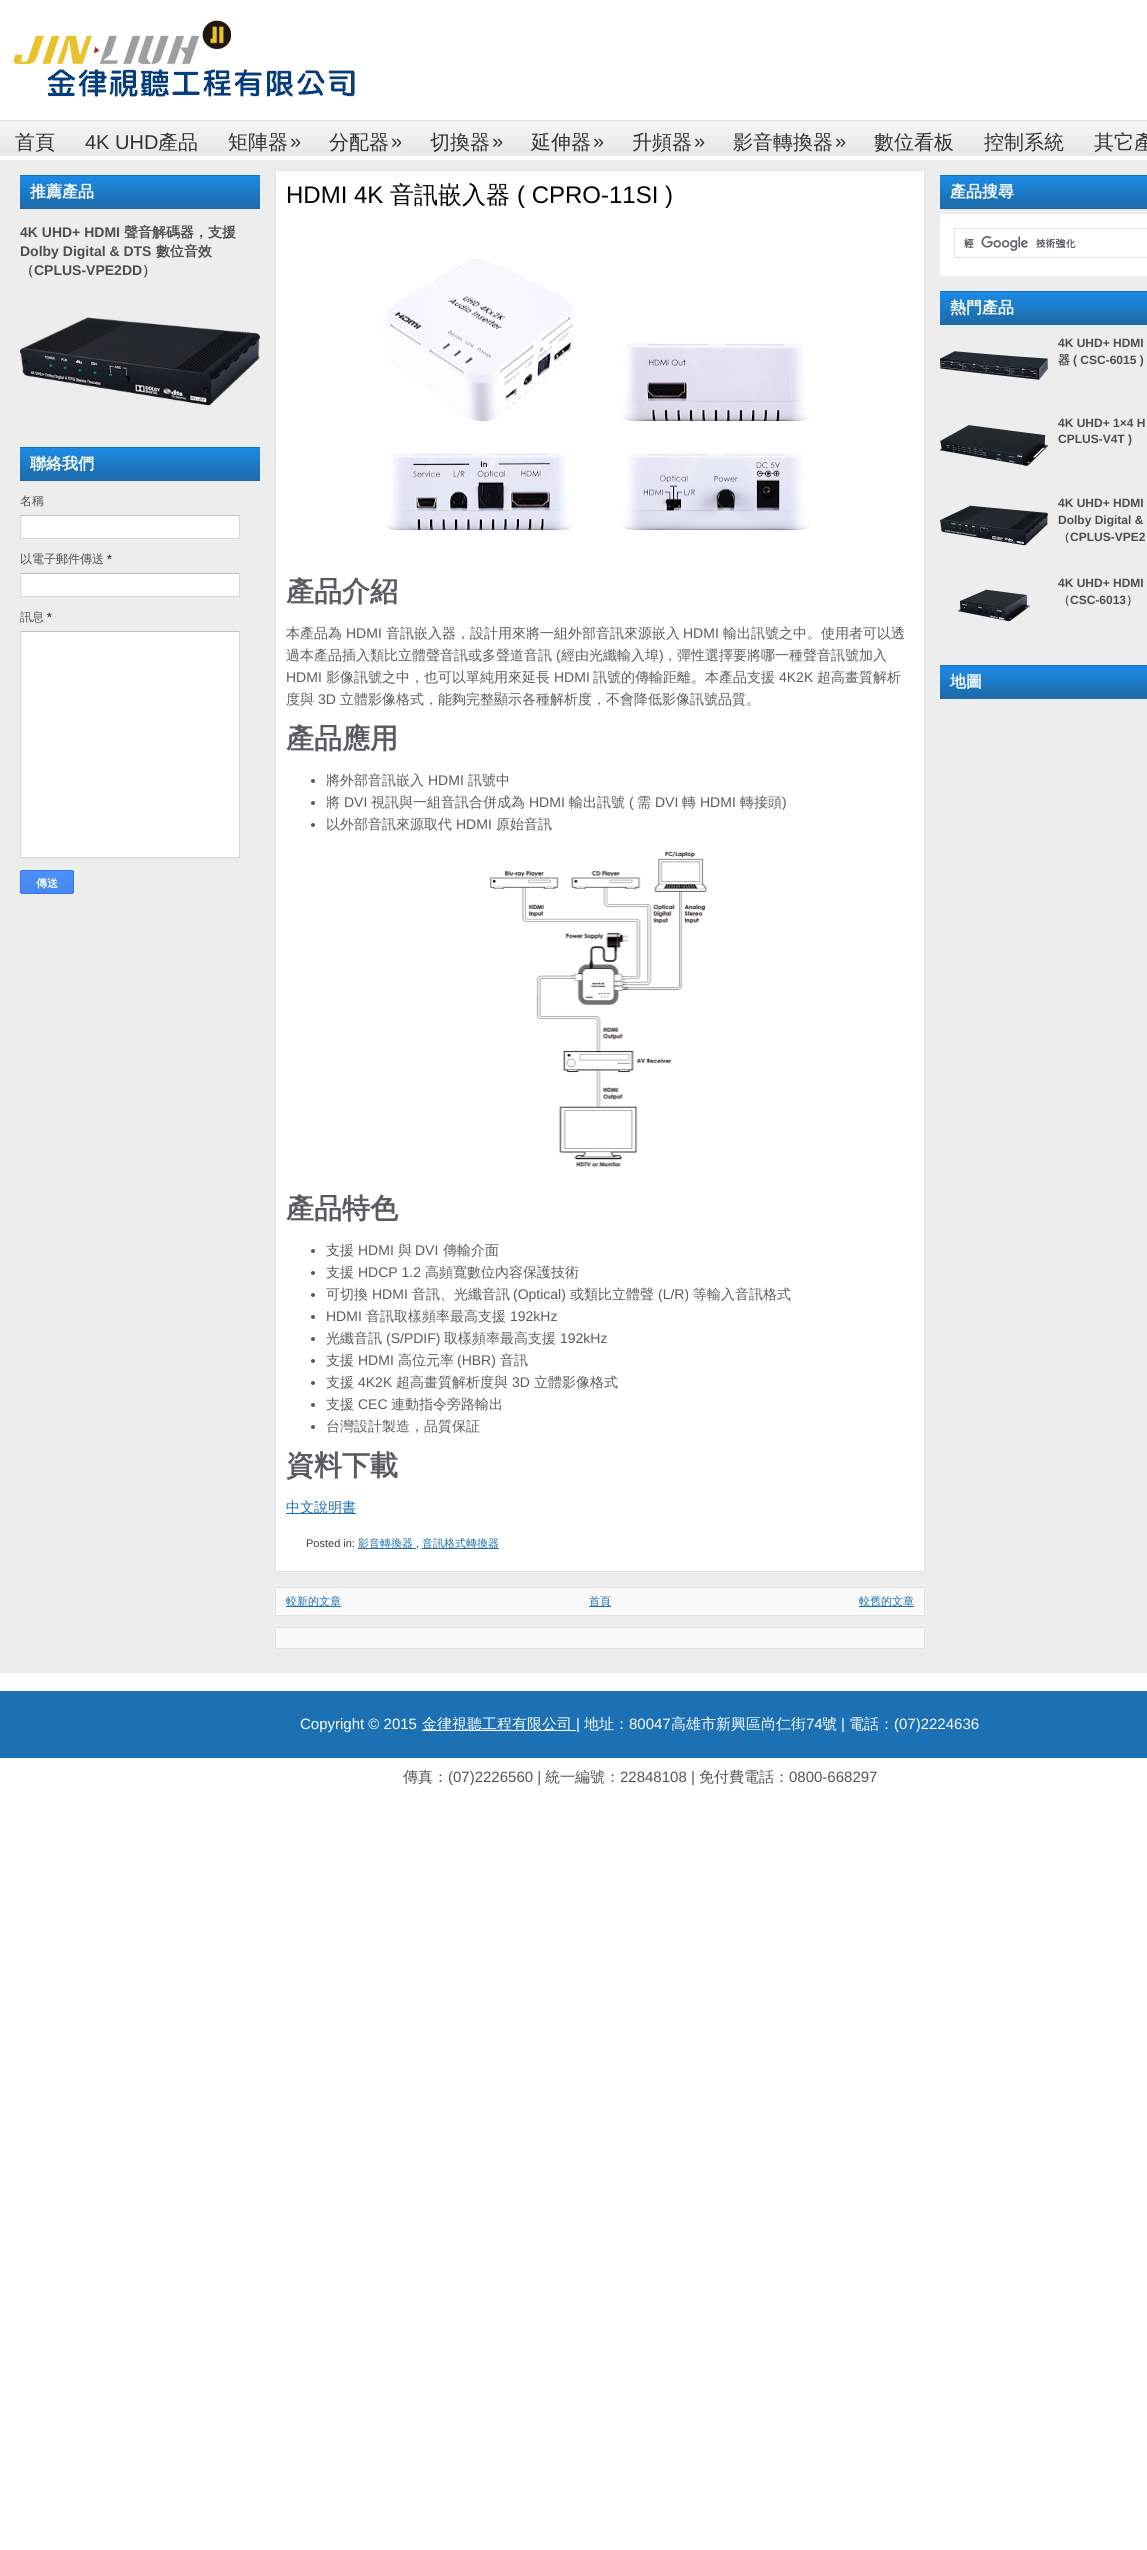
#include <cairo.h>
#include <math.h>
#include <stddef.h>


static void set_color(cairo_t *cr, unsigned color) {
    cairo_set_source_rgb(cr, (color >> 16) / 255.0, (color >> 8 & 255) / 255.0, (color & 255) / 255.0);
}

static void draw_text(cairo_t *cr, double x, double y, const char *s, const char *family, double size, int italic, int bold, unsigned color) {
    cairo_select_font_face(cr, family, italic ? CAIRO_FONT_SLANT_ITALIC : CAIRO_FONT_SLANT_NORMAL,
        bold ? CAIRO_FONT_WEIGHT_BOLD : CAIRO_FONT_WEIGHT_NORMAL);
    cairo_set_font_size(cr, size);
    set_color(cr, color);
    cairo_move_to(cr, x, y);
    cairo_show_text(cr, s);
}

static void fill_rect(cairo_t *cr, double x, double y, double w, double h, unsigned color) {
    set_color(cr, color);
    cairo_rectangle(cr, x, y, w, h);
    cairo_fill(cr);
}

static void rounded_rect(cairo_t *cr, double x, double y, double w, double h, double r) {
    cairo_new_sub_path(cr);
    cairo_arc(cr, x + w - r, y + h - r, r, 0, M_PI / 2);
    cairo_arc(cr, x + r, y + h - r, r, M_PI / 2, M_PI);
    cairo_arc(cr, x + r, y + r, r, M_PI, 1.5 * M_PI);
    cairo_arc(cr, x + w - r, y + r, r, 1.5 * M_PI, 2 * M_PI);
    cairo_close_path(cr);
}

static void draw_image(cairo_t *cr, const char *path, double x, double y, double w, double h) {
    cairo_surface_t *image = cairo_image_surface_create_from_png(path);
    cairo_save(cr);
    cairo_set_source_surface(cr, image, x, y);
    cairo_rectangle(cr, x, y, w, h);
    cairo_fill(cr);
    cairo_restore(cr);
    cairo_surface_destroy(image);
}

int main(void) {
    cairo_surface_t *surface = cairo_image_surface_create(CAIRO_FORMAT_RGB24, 1147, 2550);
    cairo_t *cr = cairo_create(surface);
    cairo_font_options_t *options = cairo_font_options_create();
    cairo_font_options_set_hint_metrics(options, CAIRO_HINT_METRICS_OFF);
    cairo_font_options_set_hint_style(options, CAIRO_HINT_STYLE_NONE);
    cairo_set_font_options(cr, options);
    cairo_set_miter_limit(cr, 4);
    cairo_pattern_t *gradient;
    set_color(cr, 0xFFFFFF);
    cairo_paint(cr);
    draw_image(cr, "assets/img1.png", 13, 20, 342, 77);
    draw_image(cr, "assets/img2.png", 0, 120, 1147, 36);
    draw_text(cr, 15, 149, "首頁", "WenQuanYi Zen Hei Medium", 20, 0, 0, 0x323232);
    draw_text(cr, 85, 149, "4K UHD", "Liberation Sans", 20, 0, 0, 0x323232);
    draw_text(cr, 158, 149, "產品", "WenQuanYi Zen Hei Medium", 20, 0, 0, 0x323232);
    draw_text(cr, 228, 149, "矩陣器", "WenQuanYi Zen Hei Medium", 20, 0, 0, 0x323232);
    draw_text(cr, 290, 148, "»", "Liberation Sans", 20, 0, 0, 0x323232);
    draw_text(cr, 329, 149, "分配器", "WenQuanYi Zen Hei Medium", 20, 0, 0, 0x323232);
    draw_text(cr, 391, 148, "»", "Liberation Sans", 20, 0, 0, 0x323232);
    draw_text(cr, 430, 149, "切換器", "WenQuanYi Zen Hei Medium", 20, 0, 0, 0x323232);
    draw_text(cr, 492, 148, "»", "Liberation Sans", 20, 0, 0, 0x323232);
    draw_text(cr, 531, 149, "延伸器", "WenQuanYi Zen Hei Medium", 20, 0, 0, 0x323232);
    draw_text(cr, 593, 148, "»", "Liberation Sans", 20, 0, 0, 0x323232);
    draw_text(cr, 632, 149, "升頻器", "WenQuanYi Zen Hei Medium", 20, 0, 0, 0x323232);
    draw_text(cr, 694, 148, "»", "Liberation Sans", 20, 0, 0, 0x323232);
    draw_text(cr, 733, 149, "影音轉換器", "WenQuanYi Zen Hei Medium", 20, 0, 0, 0x323232);
    draw_text(cr, 835, 148, "»", "Liberation Sans", 20, 0, 0, 0x323232);
    draw_text(cr, 874, 149, "數位看板", "WenQuanYi Zen Hei Medium", 20, 0, 0, 0x323232);
    draw_text(cr, 984, 149, "控制系統", "WenQuanYi Zen Hei Medium", 20, 0, 0, 0x323232);
    draw_text(cr, 1094, 149, "其它產", "WenQuanYi Zen Hei Medium", 20, 0, 0, 0x323232);
    fill_rect(cr, 0, 160, 1147, 1513, 0xEDEDED);
    draw_image(cr, "assets/img3.png", 20, 175, 240, 34);
    draw_text(cr, 30, 197, "推薦產品", "WenQuanYi Zen Hei", 16, 0, 1, 0xFFFFFF);
    draw_text(cr, 20, 237, "4K UHD+ HDMI", "Liberation Sans", 14, 0, 1, 0x504C4C);
    draw_text(cr, 124, 237, "聲音解碼器，支援", "WenQuanYi Zen Hei", 14, 0, 1, 0x504C4C);
    draw_text(cr, 20, 256, "Dolby Digital & DTS", "Liberation Sans", 14, 0, 1, 0x504C4C);
    draw_text(cr, 156, 256, "數位音效", "WenQuanYi Zen Hei", 14, 0, 1, 0x504C4C);
    draw_text(cr, 20, 275, "（", "WenQuanYi Zen Hei", 14, 0, 1, 0x504C4C);
    draw_text(cr, 34, 275, "CPLUS-VPE2DD", "Liberation Sans", 14, 0, 1, 0x504C4C);
    draw_text(cr, 142, 275, "）", "WenQuanYi Zen Hei", 14, 0, 1, 0x504C4C);
    draw_image(cr, "assets/img4.png", 20, 317, 240, 89);
    draw_image(cr, "assets/img3.png", 20, 447, 240, 34);
    draw_text(cr, 30, 469, "聯絡我們", "WenQuanYi Zen Hei", 16, 0, 1, 0xFFFFFF);
    draw_text(cr, 20, 505, "名稱", "WenQuanYi Zen Hei Medium", 12, 0, 0, 0x504C4C);
    fill_rect(cr, 21, 516, 218, 22, 0xFFFFFF);
    fill_rect(cr, 20, 515, 220, 1, 0xC0C0C0);
    fill_rect(cr, 239, 515, 1, 24, 0xD9D9D9);
    fill_rect(cr, 20, 538, 220, 1, 0xD9D9D9);
    fill_rect(cr, 20, 515, 1, 24, 0xD9D9D9);
    draw_text(cr, 20, 563, "以電子郵件傳送", "WenQuanYi Zen Hei Medium", 12, 0, 0, 0x504C4C);
    draw_text(cr, 107, 563, "*", "Liberation Sans", 12, 0, 1, 0x504C4C);
    fill_rect(cr, 21, 574, 218, 22, 0xFFFFFF);
    fill_rect(cr, 20, 573, 220, 1, 0xC0C0C0);
    fill_rect(cr, 239, 573, 1, 24, 0xD9D9D9);
    fill_rect(cr, 20, 596, 220, 1, 0xD9D9D9);
    fill_rect(cr, 20, 573, 1, 24, 0xD9D9D9);
    draw_text(cr, 20, 621, "訊息", "WenQuanYi Zen Hei Medium", 12, 0, 0, 0x504C4C);
    draw_text(cr, 47, 621, "*", "Liberation Sans", 12, 0, 1, 0x504C4C);
    fill_rect(cr, 21, 632, 218, 225, 0xFFFFFF);
    fill_rect(cr, 20, 631, 220, 1, 0xC0C0C0);
    fill_rect(cr, 239, 631, 1, 227, 0xD9D9D9);
    fill_rect(cr, 20, 857, 220, 1, 0xD9D9D9);
    fill_rect(cr, 20, 631, 1, 227, 0xD9D9D9);
    cairo_save(cr);
    rounded_rect(cr, 20, 870, 54, 24, 2);
    cairo_clip(cr);
    gradient = cairo_pattern_create_linear(47, 871, 47, 893);
    cairo_pattern_add_color_stop_rgba(gradient, 0, 0.302, 0.565, 0.996, 1);
    cairo_pattern_add_color_stop_rgba(gradient, 1, 0.278, 0.529, 0.929, 1);
    cairo_set_source(cr, gradient);
    cairo_pattern_destroy(gradient);
    cairo_rectangle(cr, 20, 871, 54, 22);
    cairo_fill(cr);
    cairo_restore(cr);
    rounded_rect(cr, 20.5, 870.5, 53, 23, 1.5);
    set_color(cr, 0x3079ED);
    cairo_set_line_width(cr, 1);
    cairo_stroke(cr);
    draw_text(cr, 36, 887, "傳送", "WenQuanYi Zen Hei", 11, 0, 1, 0xFFFFFF);
    cairo_rectangle(cr, 275.5, 170.5, 649, 1401);
    cairo_fill_preserve(cr);
    set_color(cr, 0xE3E3E3);
    cairo_stroke(cr);
    draw_text(cr, 286, 203, "HDMI 4K", "Liberation Sans", 24, 0, 0, 0x000000);
    draw_text(cr, 390, 203, "音訊嵌入器", "WenQuanYi Zen Hei Medium", 24, 0, 0, 0x000000);
    draw_text(cr, 517, 203, "( CPRO-11SI )", "Liberation Sans", 24, 0, 0, 0x000000);
    draw_image(cr, "assets/img5.png", 380, 259, 194, 162);
    draw_image(cr, "assets/img6.png", 620, 343, 190, 78);
    draw_image(cr, "assets/img7.png", 384, 453, 191, 77);
    draw_image(cr, "assets/img8.png", 620, 453, 190, 77);
    draw_text(cr, 286, 601, "產品介紹", "WenQuanYi Zen Hei", 28, 0, 1, 0x595C5F);
    draw_text(cr, 286, 638, "本產品為", "WenQuanYi Zen Hei Medium", 14, 0, 0, 0x595C5F);
    draw_text(cr, 346, 638, "HDMI", "Liberation Sans", 14, 0, 0, 0x595C5F);
    draw_text(cr, 386, 638, "音訊嵌入器，設計用來將一組外部音訊來源嵌入", "WenQuanYi Zen Hei Medium", 14, 0, 0, 0x595C5F);
    draw_text(cr, 683, 638, "HDMI", "Liberation Sans", 14, 0, 0, 0x595C5F);
    draw_text(cr, 723, 638, "輸出訊號之中。使用者可以透", "WenQuanYi Zen Hei Medium", 14, 0, 0, 0x595C5F);
    draw_text(cr, 286, 660, "過本產品插入類比立體聲音訊或多聲道音訊", "WenQuanYi Zen Hei Medium", 14, 0, 0, 0x595C5F);
    draw_text(cr, 556, 660, "(", "Liberation Sans", 14, 0, 0, 0x595C5F);
    draw_text(cr, 561, 660, "經由光纖輸入埠", "WenQuanYi Zen Hei Medium", 14, 0, 0, 0x595C5F);
    draw_text(cr, 659, 660, ")", "Liberation Sans", 14, 0, 0, 0x595C5F);
    draw_text(cr, 663, 660, "，彈性選擇要將哪一種聲音訊號加入", "WenQuanYi Zen Hei Medium", 14, 0, 0, 0x595C5F);
    draw_text(cr, 286, 682, "HDMI", "Liberation Sans", 14, 0, 0, 0x595C5F);
    draw_text(cr, 326, 682, "影像訊號之中，也可以單純用來延長", "WenQuanYi Zen Hei Medium", 14, 0, 0, 0x595C5F);
    draw_text(cr, 554, 682, "HDMI", "Liberation Sans", 14, 0, 0, 0x595C5F);
    draw_text(cr, 593, 682, "訊號的傳輸距離。本產品支援", "WenQuanYi Zen Hei Medium", 14, 0, 0, 0x595C5F);
    draw_text(cr, 779, 682, "4K2K", "Liberation Sans", 14, 0, 0, 0x595C5F);
    draw_text(cr, 817, 682, "超高畫質解析", "WenQuanYi Zen Hei Medium", 14, 0, 0, 0x595C5F);
    draw_text(cr, 286, 704, "度與", "WenQuanYi Zen Hei Medium", 14, 0, 0, 0x595C5F);
    draw_text(cr, 318, 704, "3D", "Liberation Sans", 14, 0, 0, 0x595C5F);
    draw_text(cr, 340, 704, "立體影像格式，能夠完整顯示各種解析度，不會降低影像訊號品質。", "WenQuanYi Zen Hei Medium", 14, 0, 0, 0x595C5F);
    draw_text(cr, 286, 748, "產品應用", "WenQuanYi Zen Hei", 28, 0, 1, 0x595C5F);
    cairo_new_path(cr);
    cairo_arc(cr, 313, 781, 2, 0, 2 * M_PI);
    cairo_fill(cr);
    draw_text(cr, 326, 785, "將外部音訊嵌入", "WenQuanYi Zen Hei Medium", 14, 0, 0, 0x595C5F);
    draw_text(cr, 428, 785, "HDMI", "Liberation Sans", 14, 0, 0, 0x595C5F);
    draw_text(cr, 468, 785, "訊號中", "WenQuanYi Zen Hei Medium", 14, 0, 0, 0x595C5F);
    cairo_new_path(cr);
    cairo_arc(cr, 313, 803, 2, 0, 2 * M_PI);
    cairo_fill(cr);
    draw_text(cr, 326, 807, "將", "WenQuanYi Zen Hei Medium", 14, 0, 0, 0x595C5F);
    draw_text(cr, 344, 807, "DVI", "Liberation Sans", 14, 0, 0, 0x595C5F);
    draw_text(cr, 371, 807, "視訊與一組音訊合併成為", "WenQuanYi Zen Hei Medium", 14, 0, 0, 0x595C5F);
    draw_text(cr, 529, 807, "HDMI", "Liberation Sans", 14, 0, 0, 0x595C5F);
    draw_text(cr, 569, 807, "輸出訊號", "WenQuanYi Zen Hei Medium", 14, 0, 0, 0x595C5F);
    draw_text(cr, 629, 807, "(", "Liberation Sans", 14, 0, 0, 0x595C5F);
    draw_text(cr, 637, 807, "需", "WenQuanYi Zen Hei Medium", 14, 0, 0, 0x595C5F);
    draw_text(cr, 655, 807, "DVI", "Liberation Sans", 14, 0, 0, 0x595C5F);
    draw_text(cr, 682, 807, "轉", "WenQuanYi Zen Hei Medium", 14, 0, 0, 0x595C5F);
    draw_text(cr, 700, 807, "HDMI", "Liberation Sans", 14, 0, 0, 0x595C5F);
    draw_text(cr, 740, 807, "轉接頭", "WenQuanYi Zen Hei Medium", 14, 0, 0, 0x595C5F);
    draw_text(cr, 782, 807, ")", "Liberation Sans", 14, 0, 0, 0x595C5F);
    cairo_new_path(cr);
    cairo_arc(cr, 313, 825, 2, 0, 2 * M_PI);
    cairo_fill(cr);
    draw_text(cr, 326, 829, "以外部音訊來源取代", "WenQuanYi Zen Hei Medium", 14, 0, 0, 0x595C5F);
    draw_text(cr, 456, 829, "HDMI", "Liberation Sans", 14, 0, 0, 0x595C5F);
    draw_text(cr, 496, 829, "原始音訊", "WenQuanYi Zen Hei Medium", 14, 0, 0, 0x595C5F);
    draw_image(cr, "assets/img9.png", 490, 851, 217, 316);
    draw_text(cr, 286, 1218, "產品特色", "WenQuanYi Zen Hei", 28, 0, 1, 0x595C5F);
    cairo_new_path(cr);
    cairo_arc(cr, 313, 1251, 2, 0, 2 * M_PI);
    cairo_fill(cr);
    draw_text(cr, 326, 1255, "支援", "WenQuanYi Zen Hei Medium", 14, 0, 0, 0x595C5F);
    draw_text(cr, 358, 1255, "HDMI", "Liberation Sans", 14, 0, 0, 0x595C5F);
    draw_text(cr, 398, 1255, "與", "WenQuanYi Zen Hei Medium", 14, 0, 0, 0x595C5F);
    draw_text(cr, 415, 1255, "DVI", "Liberation Sans", 14, 0, 0, 0x595C5F);
    draw_text(cr, 443, 1255, "傳輸介面", "WenQuanYi Zen Hei Medium", 14, 0, 0, 0x595C5F);
    cairo_new_path(cr);
    cairo_arc(cr, 313, 1273, 2, 0, 2 * M_PI);
    cairo_fill(cr);
    draw_text(cr, 326, 1277, "支援", "WenQuanYi Zen Hei Medium", 14, 0, 0, 0x595C5F);
    draw_text(cr, 358, 1277, "HDCP 1.2", "Liberation Sans", 14, 0, 0, 0x595C5F);
    draw_text(cr, 425, 1277, "高頻寬數位內容保護技術", "WenQuanYi Zen Hei Medium", 14, 0, 0, 0x595C5F);
    cairo_new_path(cr);
    cairo_arc(cr, 313, 1295, 2, 0, 2 * M_PI);
    cairo_fill(cr);
    draw_text(cr, 326, 1299, "可切換", "WenQuanYi Zen Hei Medium", 14, 0, 0, 0x595C5F);
    draw_text(cr, 372, 1299, "HDMI", "Liberation Sans", 14, 0, 0, 0x595C5F);
    draw_text(cr, 412, 1299, "音訊、光纖音訊", "WenQuanYi Zen Hei Medium", 14, 0, 0, 0x595C5F);
    draw_text(cr, 513, 1299, "(Optical)", "Liberation Sans", 14, 0, 0, 0x595C5F);
    draw_text(cr, 570, 1299, "或類比立體聲", "WenQuanYi Zen Hei Medium", 14, 0, 0, 0x595C5F);
    draw_text(cr, 658, 1299, "(L/R)", "Liberation Sans", 14, 0, 0, 0x595C5F);
    draw_text(cr, 693, 1299, "等輸入音訊格式", "WenQuanYi Zen Hei Medium", 14, 0, 0, 0x595C5F);
    cairo_new_path(cr);
    cairo_arc(cr, 313, 1317, 2, 0, 2 * M_PI);
    cairo_fill(cr);
    draw_text(cr, 326, 1321, "HDMI", "Liberation Sans", 14, 0, 0, 0x595C5F);
    draw_text(cr, 366, 1321, "音訊取樣頻率最高支援", "WenQuanYi Zen Hei Medium", 14, 0, 0, 0x595C5F);
    draw_text(cr, 510, 1321, "192kHz", "Liberation Sans", 14, 0, 0, 0x595C5F);
    cairo_new_path(cr);
    cairo_arc(cr, 313, 1339, 2, 0, 2 * M_PI);
    cairo_fill(cr);
    draw_text(cr, 326, 1343, "光纖音訊", "WenQuanYi Zen Hei Medium", 14, 0, 0, 0x595C5F);
    draw_text(cr, 386, 1343, "(S/PDIF)", "Liberation Sans", 14, 0, 0, 0x595C5F);
    draw_text(cr, 444, 1343, "取樣頻率最高支援", "WenQuanYi Zen Hei Medium", 14, 0, 0, 0x595C5F);
    draw_text(cr, 560, 1343, "192kHz", "Liberation Sans", 14, 0, 0, 0x595C5F);
    cairo_new_path(cr);
    cairo_arc(cr, 313, 1361, 2, 0, 2 * M_PI);
    cairo_fill(cr);
    draw_text(cr, 326, 1365, "支援", "WenQuanYi Zen Hei Medium", 14, 0, 0, 0x595C5F);
    draw_text(cr, 358, 1365, "HDMI", "Liberation Sans", 14, 0, 0, 0x595C5F);
    draw_text(cr, 398, 1365, "高位元率", "WenQuanYi Zen Hei Medium", 14, 0, 0, 0x595C5F);
    draw_text(cr, 457, 1365, "(HBR)", "Liberation Sans", 14, 0, 0, 0x595C5F);
    draw_text(cr, 500, 1365, "音訊", "WenQuanYi Zen Hei Medium", 14, 0, 0, 0x595C5F);
    cairo_new_path(cr);
    cairo_arc(cr, 313, 1383, 2, 0, 2 * M_PI);
    cairo_fill(cr);
    draw_text(cr, 326, 1387, "支援", "WenQuanYi Zen Hei Medium", 14, 0, 0, 0x595C5F);
    draw_text(cr, 358, 1387, "4K2K", "Liberation Sans", 14, 0, 0, 0x595C5F);
    draw_text(cr, 396, 1387, "超高畫質解析度與", "WenQuanYi Zen Hei Medium", 14, 0, 0, 0x595C5F);
    draw_text(cr, 512, 1387, "3D", "Liberation Sans", 14, 0, 0, 0x595C5F);
    draw_text(cr, 534, 1387, "立體影像格式", "WenQuanYi Zen Hei Medium", 14, 0, 0, 0x595C5F);
    cairo_new_path(cr);
    cairo_arc(cr, 313, 1405, 2, 0, 2 * M_PI);
    cairo_fill(cr);
    draw_text(cr, 326, 1409, "支援", "WenQuanYi Zen Hei Medium", 14, 0, 0, 0x595C5F);
    draw_text(cr, 358, 1409, "CEC", "Liberation Sans", 14, 0, 0, 0x595C5F);
    draw_text(cr, 391, 1409, "連動指令旁路輸出", "WenQuanYi Zen Hei Medium", 14, 0, 0, 0x595C5F);
    cairo_new_path(cr);
    cairo_arc(cr, 313, 1427, 2, 0, 2 * M_PI);
    cairo_fill(cr);
    draw_text(cr, 326, 1431, "台灣設計製造，品質保証", "WenQuanYi Zen Hei Medium", 14, 0, 0, 0x595C5F);
    draw_text(cr, 286, 1475, "資料下載", "WenQuanYi Zen Hei", 28, 0, 1, 0x595C5F);
    fill_rect(cr, 286, 1513, 70, 1, 0x1C6FB1);
    draw_text(cr, 286, 1512, "中文說明書", "WenQuanYi Zen Hei Medium", 14, 0, 0, 0x1C6FB1);
    draw_text(cr, 306, 1547, "Posted in:", "Liberation Sans", 11, 0, 0, 0x3E3C3C);
    fill_rect(cr, 358, 1548, 58, 1, 0x1C6FB1);
    draw_text(cr, 358, 1547, "影音轉換器", "WenQuanYi Zen Hei Medium", 11, 0, 0, 0x1C6FB1);
    draw_text(cr, 416, 1547, ",", "Liberation Sans", 11, 0, 0, 0x3E3C3C);
    fill_rect(cr, 422, 1548, 77, 1, 0x1C6FB1);
    draw_text(cr, 422, 1547, "音訊格式轉換器", "WenQuanYi Zen Hei Medium", 11, 0, 0, 0x1C6FB1);
    set_color(cr, 0xF9F9F9);
    cairo_rectangle(cr, 275.5, 1587.5, 649, 28);
    cairo_fill_preserve(cr);
    set_color(cr, 0xE3E3E3);
    cairo_stroke(cr);
    fill_rect(cr, 286, 1606, 55, 1, 0x1C6FB1);
    draw_text(cr, 286, 1605, "較新的文章", "WenQuanYi Zen Hei Medium", 11, 0, 0, 0x1C6FB1);
    fill_rect(cr, 589, 1606, 22, 1, 0x1C6FB1);
    draw_text(cr, 589, 1605, "首頁", "WenQuanYi Zen Hei Medium", 11, 0, 0, 0x1C6FB1);
    fill_rect(cr, 859, 1606, 55, 1, 0x1C6FB1);
    draw_text(cr, 859, 1605, "較舊的文章", "WenQuanYi Zen Hei Medium", 11, 0, 0, 0x1C6FB1);
    set_color(cr, 0xF9F9F9);
    cairo_rectangle(cr, 275.5, 1627.5, 649, 21);
    cairo_fill_preserve(cr);
    set_color(cr, 0xE3E3E3);
    cairo_stroke(cr);
    draw_image(cr, "assets/img10.png", 940, 175, 207, 34);
    draw_text(cr, 950, 197, "產品搜尋", "WenQuanYi Zen Hei", 16, 0, 1, 0xFFFFFF);
    fill_rect(cr, 940, 214, 207, 62, 0xFFFFFF);
    cairo_rectangle(cr, 954.5, 228.5, 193, 29);
    set_color(cr, 0xDFE1E5);
    cairo_stroke(cr);
    draw_image(cr, "assets/img11.png", 964, 236, 112, 15);
    draw_image(cr, "assets/img10.png", 940, 291, 207, 34);
    draw_text(cr, 950, 313, "熱門產品", "WenQuanYi Zen Hei", 16, 0, 1, 0xFFFFFF);
    draw_image(cr, "assets/img12.png", 940, 351, 108, 29);
    draw_text(cr, 1058, 347, "4K UHD+ HDMI", "Liberation Sans", 12, 0, 1, 0x504C4C);
    draw_text(cr, 1058, 364, "器", "WenQuanYi Zen Hei", 12, 0, 1, 0x504C4C);
    draw_text(cr, 1073, 364, "( CSC-6015 )", "Liberation Sans", 12, 0, 1, 0x504C4C);
    draw_image(cr, "assets/img13.png", 940, 425, 108, 41);
    draw_text(cr, 1058, 427, "4K UHD+ 1×4 H", "Liberation Sans", 12, 0, 1, 0x504C4C);
    draw_text(cr, 1058, 443, "CPLUS-V4T )", "Liberation Sans", 12, 0, 1, 0x504C4C);
    draw_image(cr, "assets/img14.png", 940, 505, 108, 41);
    draw_text(cr, 1058, 507, "4K UHD+ HDMI", "Liberation Sans", 12, 0, 1, 0x504C4C);
    draw_text(cr, 1058, 524, "Dolby Digital &", "Liberation Sans", 12, 0, 1, 0x504C4C);
    draw_text(cr, 1058, 541, "（", "WenQuanYi Zen Hei", 12, 0, 1, 0x504C4C);
    draw_text(cr, 1070, 541, "CPLUS-VPE2", "Liberation Sans", 12, 0, 1, 0x504C4C);
    draw_image(cr, "assets/img15.png", 958, 589, 72, 33);
    draw_text(cr, 1058, 587, "4K UHD+ HDMI", "Liberation Sans", 12, 0, 1, 0x504C4C);
    draw_text(cr, 1058, 604, "（", "WenQuanYi Zen Hei", 12, 0, 1, 0x504C4C);
    draw_text(cr, 1070, 604, "CSC-6013", "Liberation Sans", 12, 0, 1, 0x504C4C);
    draw_text(cr, 1126, 604, "）", "WenQuanYi Zen Hei", 12, 0, 1, 0x504C4C);
    draw_image(cr, "assets/img10.png", 940, 665, 207, 34);
    draw_text(cr, 950, 687, "地圖", "WenQuanYi Zen Hei", 16, 0, 1, 0xFFFFFF);
    fill_rect(cr, 0, 1691, 1147, 67, 0x1C71B5);
    draw_text(cr, 300, 1729, "Copyright © 2015", "Liberation Sans", 15, 0, 0, 0xFFFFFF);
    fill_rect(cr, 422, 1730, 154, 1, 0xFFFFFF);
    draw_text(cr, 422, 1729, "金律視聽工程有限公司", "WenQuanYi Zen Hei Medium", 15, 0, 0, 0xFFFFFF);
    draw_text(cr, 576, 1729, "|", "Liberation Sans", 15, 0, 0, 0xFFFFFF);
    draw_text(cr, 584, 1729, "地址：", "WenQuanYi Zen Hei Medium", 15, 0, 0, 0xFFFFFF);
    draw_text(cr, 629, 1729, "80047", "Liberation Sans", 15, 0, 0, 0xFFFFFF);
    draw_text(cr, 671, 1729, "高雄市新興區尚仁街", "WenQuanYi Zen Hei Medium", 15, 0, 0, 0xFFFFFF);
    draw_text(cr, 806, 1729, "74", "Liberation Sans", 15, 0, 0, 0xFFFFFF);
    draw_text(cr, 822, 1729, "號", "WenQuanYi Zen Hei Medium", 15, 0, 0, 0xFFFFFF);
    draw_text(cr, 841, 1729, "|", "Liberation Sans", 15, 0, 0, 0xFFFFFF);
    draw_text(cr, 849, 1729, "電話：", "WenQuanYi Zen Hei Medium", 15, 0, 0, 0xFFFFFF);
    draw_text(cr, 894, 1729, "(07)2224636", "Liberation Sans", 15, 0, 0, 0xFFFFFF);
    draw_text(cr, 403, 1782, "傳真：", "WenQuanYi Zen Hei Medium", 15, 0, 0, 0x555555);
    draw_text(cr, 448, 1782, "(07)2226560 |", "Liberation Sans", 15, 0, 0, 0x555555);
    draw_text(cr, 545, 1782, "統一編號：", "WenQuanYi Zen Hei Medium", 15, 0, 0, 0x555555);
    draw_text(cr, 620, 1782, "22848108 |", "Liberation Sans", 15, 0, 0, 0x555555);
    draw_text(cr, 699, 1782, "免付費電話：", "WenQuanYi Zen Hei Medium", 15, 0, 0, 0x555555);
    draw_text(cr, 789, 1782, "0800-668297", "Liberation Sans", 15, 0, 0, 0x555555);
    cairo_surface_write_to_png(surface, "output.png");
    cairo_font_options_destroy(options);
    cairo_destroy(cr);
    cairo_surface_destroy(surface);
    return 0;
}
